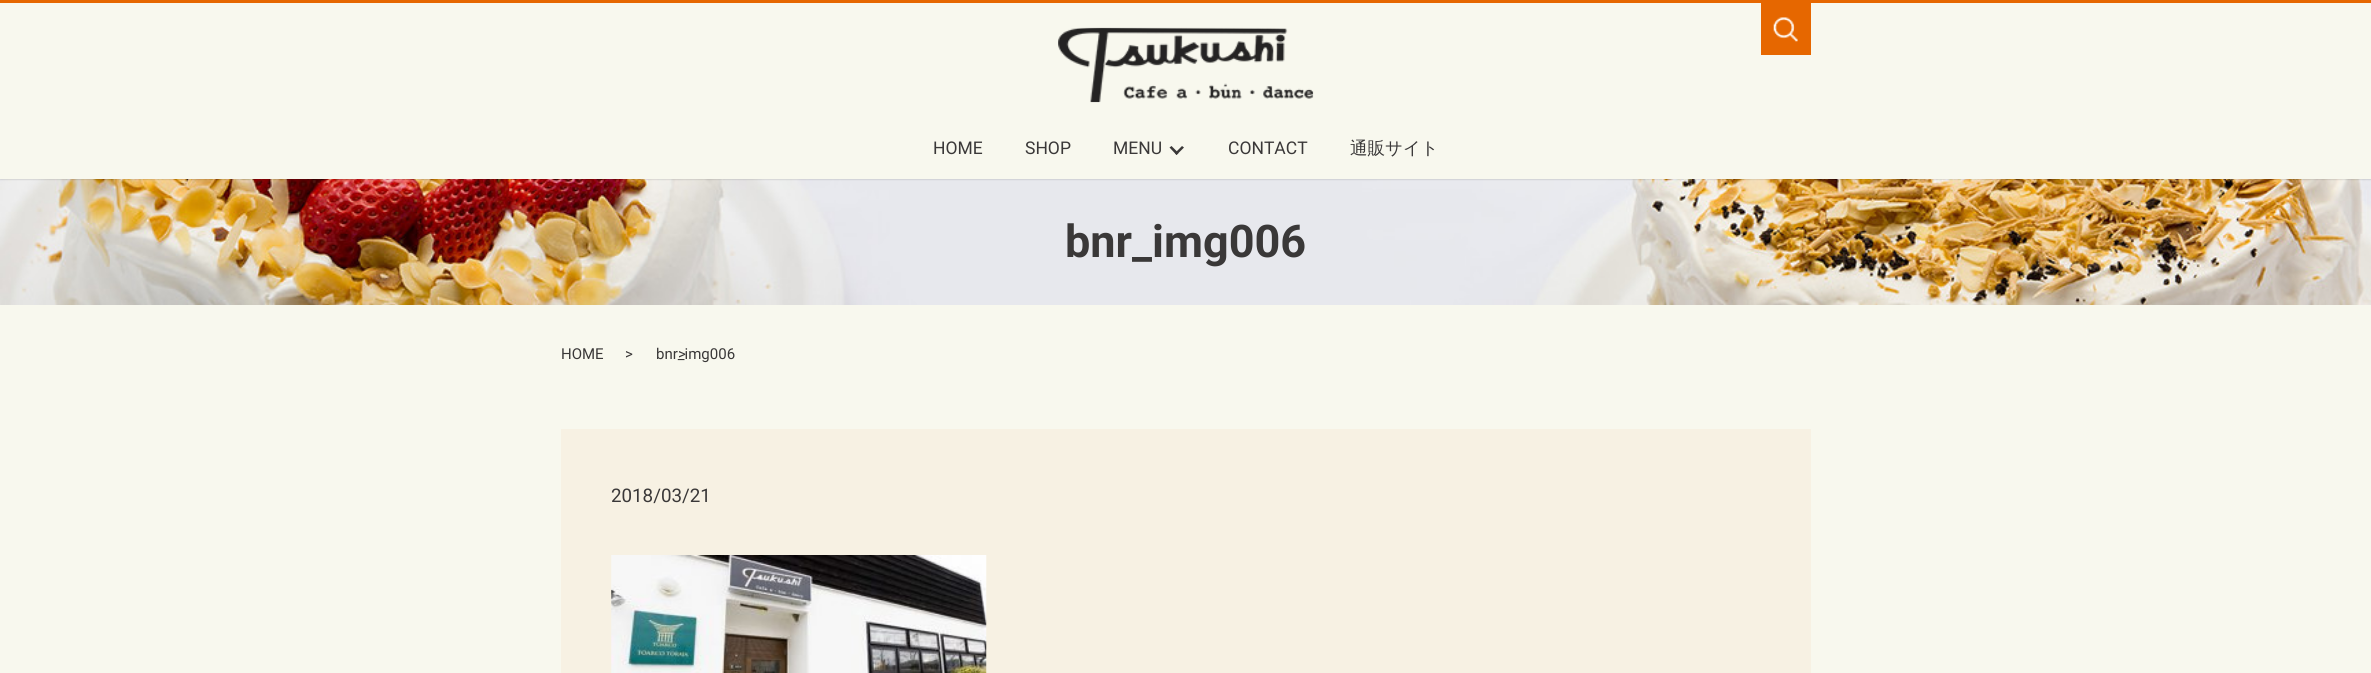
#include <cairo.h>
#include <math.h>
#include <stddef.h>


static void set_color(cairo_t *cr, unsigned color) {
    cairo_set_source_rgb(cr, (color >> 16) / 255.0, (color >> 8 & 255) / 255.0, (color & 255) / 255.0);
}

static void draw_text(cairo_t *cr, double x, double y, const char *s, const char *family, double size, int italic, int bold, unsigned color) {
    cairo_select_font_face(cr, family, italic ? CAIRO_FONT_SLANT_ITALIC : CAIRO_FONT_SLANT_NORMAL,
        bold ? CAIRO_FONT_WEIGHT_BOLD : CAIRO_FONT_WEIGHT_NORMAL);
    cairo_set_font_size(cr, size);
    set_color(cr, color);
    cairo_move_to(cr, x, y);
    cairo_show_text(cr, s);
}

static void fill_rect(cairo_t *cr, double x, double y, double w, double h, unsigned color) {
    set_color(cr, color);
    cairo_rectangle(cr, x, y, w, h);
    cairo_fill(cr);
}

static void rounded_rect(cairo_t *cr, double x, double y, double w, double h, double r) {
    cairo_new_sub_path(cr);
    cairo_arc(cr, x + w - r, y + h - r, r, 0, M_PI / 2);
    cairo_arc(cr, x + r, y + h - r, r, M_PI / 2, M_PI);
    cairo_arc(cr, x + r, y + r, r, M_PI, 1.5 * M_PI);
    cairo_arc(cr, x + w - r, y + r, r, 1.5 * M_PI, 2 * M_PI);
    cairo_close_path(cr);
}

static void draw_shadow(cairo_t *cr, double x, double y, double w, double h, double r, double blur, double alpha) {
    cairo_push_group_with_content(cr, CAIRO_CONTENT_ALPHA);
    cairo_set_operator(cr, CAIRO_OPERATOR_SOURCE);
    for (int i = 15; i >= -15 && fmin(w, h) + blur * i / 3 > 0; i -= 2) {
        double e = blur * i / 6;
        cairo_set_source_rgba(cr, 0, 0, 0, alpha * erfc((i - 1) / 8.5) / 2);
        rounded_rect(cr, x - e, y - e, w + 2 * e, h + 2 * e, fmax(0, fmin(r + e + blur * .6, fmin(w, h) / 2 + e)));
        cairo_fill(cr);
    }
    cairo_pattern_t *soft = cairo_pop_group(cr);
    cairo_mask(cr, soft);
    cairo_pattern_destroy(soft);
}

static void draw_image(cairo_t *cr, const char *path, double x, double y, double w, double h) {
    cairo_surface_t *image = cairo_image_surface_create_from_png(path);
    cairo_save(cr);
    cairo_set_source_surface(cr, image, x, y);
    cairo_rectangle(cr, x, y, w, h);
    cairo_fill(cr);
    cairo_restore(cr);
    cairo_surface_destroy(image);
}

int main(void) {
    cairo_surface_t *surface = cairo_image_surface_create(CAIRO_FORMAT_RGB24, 2371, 673);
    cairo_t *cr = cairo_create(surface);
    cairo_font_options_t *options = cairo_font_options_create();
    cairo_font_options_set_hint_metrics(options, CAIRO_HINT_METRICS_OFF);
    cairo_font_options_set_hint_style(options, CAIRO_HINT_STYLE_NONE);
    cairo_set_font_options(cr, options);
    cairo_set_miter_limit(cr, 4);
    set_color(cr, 0xF8F8EE);
    cairo_paint(cr);
    draw_image(cr, "assets/img3.png", 0, 179, 2371, 126);
    set_color(cr, 0x000000);
    draw_shadow(cr, 0, 1, 2371, 179, 0, 0.5, 0.1);
    fill_rect(cr, 0, 3, 2371, 176, 0xF8F8EE);
    fill_rect(cr, 0, 0, 2371, 3, 0xE66700);
    draw_image(cr, "assets/img1.png", 1058, 27, 256, 76);
    fill_rect(cr, 1761, 3, 50, 52, 0xE66700);
    draw_image(cr, "assets/img2.png", 1773, 17, 25, 25);
    draw_text(cr, 933, 154, "HOME", "Roboto", 17.5, 0, 0, 0x3A3838);
    draw_text(cr, 1025, 154, "SHOP", "Roboto", 17.5, 0, 0, 0x3A3838);
    draw_text(cr, 1113, 154, "MENU", "Roboto", 17.5, 0, 0, 0x3A3838);
    cairo_new_path(cr);
    cairo_move_to(cr, 1184, 147.5);
    cairo_line_to(cr, 1176.5, 155);
    cairo_line_to(cr, 1175, 153);
    cairo_line_to(cr, 1182, 146);
    cairo_close_path(cr);
    cairo_fill(cr);
    cairo_new_path(cr);
    cairo_move_to(cr, 1178.5, 153);
    cairo_line_to(cr, 1176.5, 155);
    cairo_line_to(cr, 1169.5, 147.5);
    cairo_line_to(cr, 1171.5, 146);
    cairo_close_path(cr);
    cairo_fill(cr);
    draw_text(cr, 1228, 154, "CONTACT", "Roboto", 17.5, 0, 0, 0x3A3838);
    draw_text(cr, 1350, 154, "通販サイト", "WenQuanYi Zen Hei Medium", 17.5, 0, 0, 0x3A3838);
    draw_text(cr, 1065, 257, "bnr_img006", "Roboto", 45, 0, 1, 0x3A3838);
    draw_text(cr, 561, 359, "HOME", "Roboto", 15, 0, 0, 0x3A3838);
    draw_text(cr, 625, 359, ">", "Roboto", 15, 0, 0, 0x3A3838);
    draw_text(cr, 678, 359, ">", "Roboto", 15, 0, 0, 0x3A3838);
    draw_text(cr, 656, 359, "bnr_img006", "Roboto", 15, 0, 0, 0x3A3838);
    fill_rect(cr, 561, 429, 1250, 244, 0xF7F1E3);
    draw_text(cr, 611, 502, "2018/03/21", "Roboto", 18.75, 0, 0, 0x3A3838);
    draw_image(cr, "assets/img4.png", 611, 555, 376, 118);
    cairo_surface_write_to_png(surface, "output.png");
    cairo_font_options_destroy(options);
    cairo_destroy(cr);
    cairo_surface_destroy(surface);
    return 0;
}
